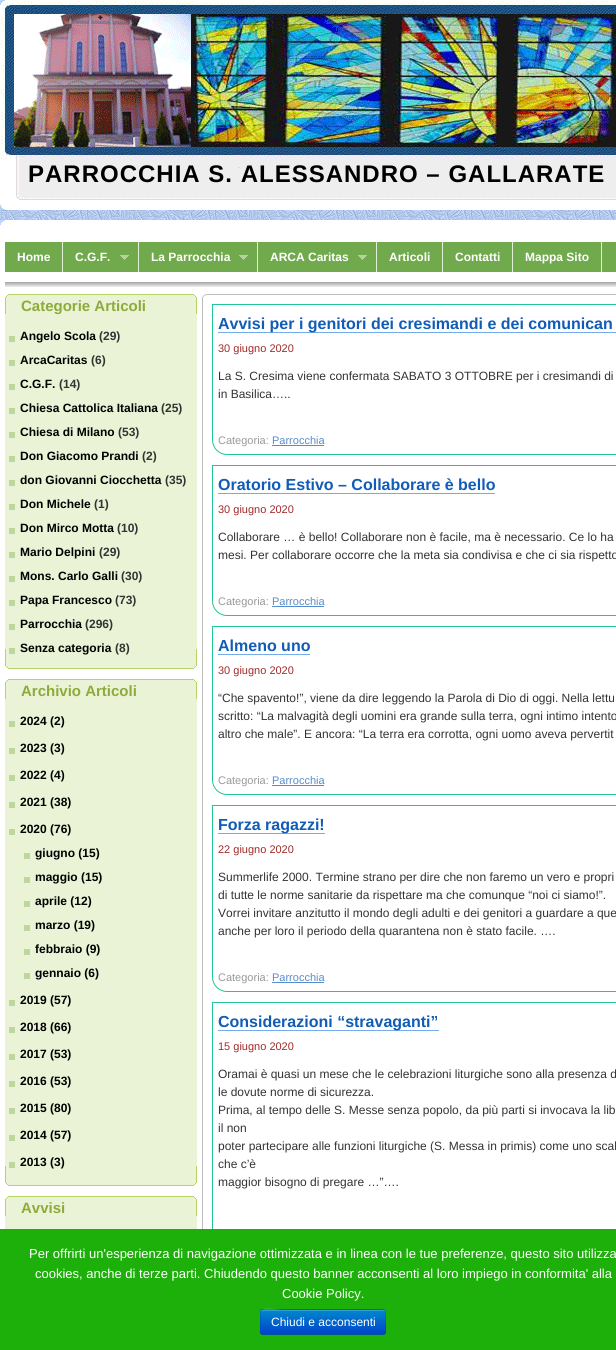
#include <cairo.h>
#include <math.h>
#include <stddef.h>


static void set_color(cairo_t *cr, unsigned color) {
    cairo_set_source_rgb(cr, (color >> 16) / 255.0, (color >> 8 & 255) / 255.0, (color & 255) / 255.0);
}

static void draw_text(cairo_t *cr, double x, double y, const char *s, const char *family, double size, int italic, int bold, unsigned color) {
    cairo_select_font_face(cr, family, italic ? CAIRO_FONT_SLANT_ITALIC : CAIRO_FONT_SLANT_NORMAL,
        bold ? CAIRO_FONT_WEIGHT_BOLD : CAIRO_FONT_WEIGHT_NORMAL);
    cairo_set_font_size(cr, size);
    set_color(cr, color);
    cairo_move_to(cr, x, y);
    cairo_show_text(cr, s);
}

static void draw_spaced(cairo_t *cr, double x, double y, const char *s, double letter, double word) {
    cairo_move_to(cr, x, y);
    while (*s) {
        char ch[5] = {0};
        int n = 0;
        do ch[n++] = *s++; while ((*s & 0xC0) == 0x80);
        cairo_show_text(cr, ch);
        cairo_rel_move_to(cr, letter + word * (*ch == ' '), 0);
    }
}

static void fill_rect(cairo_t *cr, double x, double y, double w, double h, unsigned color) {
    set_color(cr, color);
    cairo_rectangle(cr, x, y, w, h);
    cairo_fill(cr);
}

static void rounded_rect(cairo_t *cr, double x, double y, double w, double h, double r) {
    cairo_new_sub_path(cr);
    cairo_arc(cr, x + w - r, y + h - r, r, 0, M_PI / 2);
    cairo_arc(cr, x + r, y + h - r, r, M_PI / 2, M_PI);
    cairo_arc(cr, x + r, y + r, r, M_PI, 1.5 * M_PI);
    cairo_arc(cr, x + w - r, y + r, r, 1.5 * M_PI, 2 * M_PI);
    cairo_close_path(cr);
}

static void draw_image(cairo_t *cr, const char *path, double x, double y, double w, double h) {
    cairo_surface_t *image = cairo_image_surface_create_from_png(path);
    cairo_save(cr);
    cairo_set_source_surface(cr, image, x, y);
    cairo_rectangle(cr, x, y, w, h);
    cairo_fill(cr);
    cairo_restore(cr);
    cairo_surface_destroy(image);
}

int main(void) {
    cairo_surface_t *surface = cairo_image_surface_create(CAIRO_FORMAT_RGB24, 616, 1350);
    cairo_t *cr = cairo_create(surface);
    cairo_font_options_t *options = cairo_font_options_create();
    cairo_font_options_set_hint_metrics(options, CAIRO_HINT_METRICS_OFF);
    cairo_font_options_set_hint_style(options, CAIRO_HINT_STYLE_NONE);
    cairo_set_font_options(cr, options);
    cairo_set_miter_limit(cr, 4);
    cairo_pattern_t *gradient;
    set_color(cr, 0xFFFFFF);
    cairo_paint(cr);
    draw_image(cr, "assets/img1.png", 0, 210, 616, 10);
    draw_image(cr, "assets/img2.png", 0, 0, 616, 210);
    cairo_select_font_face(cr, "Liberation Sans", CAIRO_FONT_SLANT_NORMAL, CAIRO_FONT_WEIGHT_BOLD);
    cairo_set_font_size(cr, 24);
    set_color(cr, 0x000000);
    draw_spaced(cr, 28, 182, "PARROCCHIA S. ALESSANDRO – GALLARATE", 1, 0);
    draw_image(cr, "assets/img3.png", 0, 220, 5, 5);
    fill_rect(cr, 5, 242, 611, 30, 0x70AA4D);
    fill_rect(cr, 62, 242, 1, 30, 0xE0F1D6);
    draw_text(cr, 17, 261, "Home", "Liberation Sans", 12, 0, 1, 0xFFFFFF);
    fill_rect(cr, 138, 242, 1, 30, 0xE0F1D6);
    draw_text(cr, 75, 261, "C.G.F.", "Liberation Sans", 12, 0, 1, 0xFFFFFF);
    draw_image(cr, "assets/img4.png", 120, 255, 9, 5);
    fill_rect(cr, 257, 242, 1, 30, 0xE0F1D6);
    draw_text(cr, 151, 261, "La Parrocchia", "Liberation Sans", 12, 0, 1, 0xFFFFFF);
    draw_image(cr, "assets/img4.png", 239, 255, 9, 5);
    fill_rect(cr, 376, 242, 1, 30, 0xE0F1D6);
    draw_text(cr, 270, 261, "ARCA Caritas", "Liberation Sans", 12, 0, 1, 0xFFFFFF);
    draw_image(cr, "assets/img4.png", 358, 255, 9, 5);
    fill_rect(cr, 442, 242, 1, 30, 0xE0F1D6);
    draw_text(cr, 389, 261, "Articoli", "Liberation Sans", 12, 0, 1, 0xFFFFFF);
    fill_rect(cr, 512, 242, 1, 30, 0xE0F1D6);
    draw_text(cr, 455, 261, "Contatti", "Liberation Sans", 12, 0, 1, 0xFFFFFF);
    fill_rect(cr, 601, 242, 1, 30, 0xE0F1D6);
    draw_text(cr, 525, 261, "Mappa Sito", "Liberation Sans", 12, 0, 1, 0xFFFFFF);
    draw_image(cr, "assets/img5.png", 5, 282, 611, 5);
    fill_rect(cr, 5, 314, 192, 915, 0xEBF3D6);
    draw_image(cr, "assets/img6.png", 5, 649, 192, 30);
    draw_image(cr, "assets/img7.png", 5, 294, 192, 20);
    draw_text(cr, 21, 311, "Categorie Articoli", "Liberation Sans", 15, 0, 1, 0x8DAB3B);
    fill_rect(cr, 9, 336, 6, 6, 0xBFD79D);
    draw_text(cr, 20, 340, "Angelo Scola", "Liberation Sans", 12, 0, 1, 0x000000);
    draw_text(cr, 99, 340, "(29)", "Liberation Sans", 12, 0, 1, 0x333333);
    fill_rect(cr, 9, 360, 6, 6, 0xBFD79D);
    draw_text(cr, 20, 364, "ArcaCaritas", "Liberation Sans", 12, 0, 1, 0x000000);
    draw_text(cr, 91, 364, "(6)", "Liberation Sans", 12, 0, 1, 0x333333);
    fill_rect(cr, 9, 384, 6, 6, 0xBFD79D);
    draw_text(cr, 20, 388, "C.G.F.", "Liberation Sans", 12, 0, 1, 0x000000);
    draw_text(cr, 59, 388, "(14)", "Liberation Sans", 12, 0, 1, 0x333333);
    fill_rect(cr, 9, 408, 6, 6, 0xBFD79D);
    draw_text(cr, 20, 412, "Chiesa Cattolica Italiana", "Liberation Sans", 12, 0, 1, 0x000000);
    draw_text(cr, 161, 412, "(25)", "Liberation Sans", 12, 0, 1, 0x333333);
    fill_rect(cr, 9, 432, 6, 6, 0xBFD79D);
    draw_text(cr, 20, 436, "Chiesa di Milano", "Liberation Sans", 12, 0, 1, 0x000000);
    draw_text(cr, 118, 436, "(53)", "Liberation Sans", 12, 0, 1, 0x333333);
    fill_rect(cr, 9, 456, 6, 6, 0xBFD79D);
    draw_text(cr, 20, 460, "Don Giacomo Prandi", "Liberation Sans", 12, 0, 1, 0x000000);
    draw_text(cr, 142, 460, "(2)", "Liberation Sans", 12, 0, 1, 0x333333);
    fill_rect(cr, 9, 480, 6, 6, 0xBFD79D);
    draw_text(cr, 20, 484, "don Giovanni Ciocchetta", "Liberation Sans", 12, 0, 1, 0x000000);
    draw_text(cr, 165, 484, "(35)", "Liberation Sans", 12, 0, 1, 0x333333);
    fill_rect(cr, 9, 504, 6, 6, 0xBFD79D);
    draw_text(cr, 20, 508, "Don Michele", "Liberation Sans", 12, 0, 1, 0x000000);
    draw_text(cr, 94, 508, "(1)", "Liberation Sans", 12, 0, 1, 0x333333);
    fill_rect(cr, 9, 528, 6, 6, 0xBFD79D);
    draw_text(cr, 20, 532, "Don Mirco Motta", "Liberation Sans", 12, 0, 1, 0x000000);
    draw_text(cr, 117, 532, "(10)", "Liberation Sans", 12, 0, 1, 0x333333);
    fill_rect(cr, 9, 552, 6, 6, 0xBFD79D);
    draw_text(cr, 20, 556, "Mario Delpini", "Liberation Sans", 12, 0, 1, 0x000000);
    draw_text(cr, 99, 556, "(29)", "Liberation Sans", 12, 0, 1, 0x333333);
    fill_rect(cr, 9, 576, 6, 6, 0xBFD79D);
    draw_text(cr, 20, 580, "Mons. Carlo Galli", "Liberation Sans", 12, 0, 1, 0x000000);
    draw_text(cr, 121, 580, "(30)", "Liberation Sans", 12, 0, 1, 0x333333);
    fill_rect(cr, 9, 600, 6, 6, 0xBFD79D);
    draw_text(cr, 20, 604, "Papa Francesco", "Liberation Sans", 12, 0, 1, 0x000000);
    draw_text(cr, 115, 604, "(73)", "Liberation Sans", 12, 0, 1, 0x333333);
    fill_rect(cr, 9, 624, 6, 6, 0xBFD79D);
    draw_text(cr, 20, 628, "Parrocchia", "Liberation Sans", 12, 0, 1, 0x000000);
    draw_text(cr, 85, 628, "(296)", "Liberation Sans", 12, 0, 1, 0x333333);
    fill_rect(cr, 9, 648, 6, 6, 0xBFD79D);
    draw_text(cr, 20, 652, "Senza categoria", "Liberation Sans", 12, 0, 1, 0x000000);
    draw_text(cr, 115, 652, "(8)", "Liberation Sans", 12, 0, 1, 0x333333);
    draw_image(cr, "assets/img6.png", 5, 1166, 192, 30);
    draw_image(cr, "assets/img7.png", 5, 679, 192, 20);
    draw_text(cr, 21, 696, "Archivio Articoli", "Liberation Sans", 15, 0, 1, 0x8DAB3B);
    fill_rect(cr, 9, 721, 6, 6, 0xBFD79D);
    draw_text(cr, 20, 725, "2024 (2)", "Liberation Sans", 12, 0, 1, 0x000000);
    fill_rect(cr, 9, 748, 6, 6, 0xBFD79D);
    draw_text(cr, 20, 752, "2023 (3)", "Liberation Sans", 12, 0, 1, 0x000000);
    fill_rect(cr, 9, 775, 6, 6, 0xBFD79D);
    draw_text(cr, 20, 779, "2022 (4)", "Liberation Sans", 12, 0, 1, 0x000000);
    fill_rect(cr, 9, 802, 6, 6, 0xBFD79D);
    draw_text(cr, 20, 806, "2021 (38)", "Liberation Sans", 12, 0, 1, 0x000000);
    fill_rect(cr, 9, 829, 6, 6, 0xBFD79D);
    draw_text(cr, 20, 833, "2020 (76)", "Liberation Sans", 12, 0, 1, 0x000000);
    fill_rect(cr, 24, 853, 6, 6, 0xBFD79D);
    draw_text(cr, 35, 857, "giugno (15)", "Liberation Sans", 12, 0, 1, 0x000000);
    fill_rect(cr, 24, 877, 6, 6, 0xBFD79D);
    draw_text(cr, 35, 881, "maggio (15)", "Liberation Sans", 12, 0, 1, 0x000000);
    fill_rect(cr, 24, 901, 6, 6, 0xBFD79D);
    draw_text(cr, 35, 905, "aprile (12)", "Liberation Sans", 12, 0, 1, 0x000000);
    fill_rect(cr, 24, 925, 6, 6, 0xBFD79D);
    draw_text(cr, 35, 929, "marzo (19)", "Liberation Sans", 12, 0, 1, 0x000000);
    fill_rect(cr, 24, 949, 6, 6, 0xBFD79D);
    draw_text(cr, 35, 953, "febbraio (9)", "Liberation Sans", 12, 0, 1, 0x000000);
    fill_rect(cr, 24, 973, 6, 6, 0xBFD79D);
    draw_text(cr, 35, 977, "gennaio (6)", "Liberation Sans", 12, 0, 1, 0x000000);
    fill_rect(cr, 9, 1000, 6, 6, 0xBFD79D);
    draw_text(cr, 20, 1004, "2019 (57)", "Liberation Sans", 12, 0, 1, 0x000000);
    fill_rect(cr, 9, 1027, 6, 6, 0xBFD79D);
    draw_text(cr, 20, 1031, "2018 (66)", "Liberation Sans", 12, 0, 1, 0x000000);
    fill_rect(cr, 9, 1054, 6, 6, 0xBFD79D);
    draw_text(cr, 20, 1058, "2017 (53)", "Liberation Sans", 12, 0, 1, 0x000000);
    fill_rect(cr, 9, 1081, 6, 6, 0xBFD79D);
    draw_text(cr, 20, 1085, "2016 (53)", "Liberation Sans", 12, 0, 1, 0x000000);
    fill_rect(cr, 9, 1108, 6, 6, 0xBFD79D);
    draw_text(cr, 20, 1112, "2015 (80)", "Liberation Sans", 12, 0, 1, 0x000000);
    fill_rect(cr, 9, 1135, 6, 6, 0xBFD79D);
    draw_text(cr, 20, 1139, "2014 (57)", "Liberation Sans", 12, 0, 1, 0x000000);
    fill_rect(cr, 9, 1162, 6, 6, 0xBFD79D);
    draw_text(cr, 20, 1166, "2013 (3)", "Liberation Sans", 12, 0, 1, 0x000000);
    draw_image(cr, "assets/img7.png", 5, 1196, 192, 20);
    draw_text(cr, 21, 1213, "Avvisi", "Liberation Sans", 15, 0, 1, 0x8DAB3B);
    fill_rect(cr, 202, 294, 1, 935, 0xBCBCBC);
    draw_image(cr, "assets/img8.png", 202, 294, 414, 4);
    cairo_new_path(cr);
    cairo_move_to(cr, 212.5, 304.5);
    cairo_line_to(cr, 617, 304.5);
    cairo_curve_to(cr, 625, 304.5, 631.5, 311, 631.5, 319);
    cairo_line_to(cr, 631.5, 454.5);
    cairo_line_to(cr, 227, 454.5);
    cairo_curve_to(cr, 219, 454.5, 212.5, 448, 212.5, 440);
    cairo_close_path(cr);
    set_color(cr, 0x20C696);
    cairo_set_line_width(cr, 1);
    cairo_stroke(cr);
    fill_rect(cr, 218, 332, 398, 1, 0x75ABEA);
    draw_text(cr, 218, 329, "Avvisi per i genitori dei cresimandi e dei comunican", "Liberation Sans", 16, 0, 1, 0x105CB6);
    draw_text(cr, 218, 352, "30 giugno 2020", "Liberation Sans", 11, 0, 0, 0xA12A2A);
    draw_text(cr, 218, 380, "La S. Cresima viene confermata SABATO 3 OTTOBRE per i cresimandi di", "Liberation Sans", 12, 0, 0, 0x333333);
    draw_text(cr, 218, 398, "in Basilica…..", "Liberation Sans", 12, 0, 0, 0x333333);
    draw_text(cr, 218, 444, "Categoria:", "Liberation Sans", 11, 0, 0, 0x999999);
    draw_text(cr, 272, 444, "Parrocchia", "Liberation Sans", 11, 0, 0, 0x578CCA);
    fill_rect(cr, 272, 445, 52, 1, 0x578CCA);
    cairo_new_path(cr);
    cairo_move_to(cr, 212.5, 465.5);
    cairo_line_to(cr, 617, 465.5);
    cairo_curve_to(cr, 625, 465.5, 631.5, 472, 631.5, 480);
    cairo_line_to(cr, 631.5, 615.5);
    cairo_line_to(cr, 227, 615.5);
    cairo_curve_to(cr, 219, 615.5, 212.5, 609, 212.5, 601);
    cairo_close_path(cr);
    set_color(cr, 0x20C696);
    cairo_stroke(cr);
    draw_text(cr, 218, 490, "Oratorio Estivo – Collaborare è bello", "Liberation Sans", 16, 0, 1, 0x105CB6);
    fill_rect(cr, 218, 493, 277, 1, 0x75ABEA);
    draw_text(cr, 218, 513, "30 giugno 2020", "Liberation Sans", 11, 0, 0, 0xA12A2A);
    draw_text(cr, 218, 541, "Collaborare … è bello! Collaborare non è facile, ma è necessario. Ce lo ha", "Liberation Sans", 12, 0, 0, 0x333333);
    draw_text(cr, 218, 559, "mesi. Per collaborare occorre che la meta sia condivisa e che ci sia rispetto", "Liberation Sans", 12, 0, 0, 0x333333);
    draw_text(cr, 218, 605, "Categoria:", "Liberation Sans", 11, 0, 0, 0x999999);
    draw_text(cr, 272, 605, "Parrocchia", "Liberation Sans", 11, 0, 0, 0x578CCA);
    fill_rect(cr, 272, 606, 52, 1, 0x578CCA);
    cairo_new_path(cr);
    cairo_move_to(cr, 212.5, 626.5);
    cairo_line_to(cr, 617, 626.5);
    cairo_curve_to(cr, 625, 626.5, 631.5, 633, 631.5, 641);
    cairo_line_to(cr, 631.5, 794.5);
    cairo_line_to(cr, 227, 794.5);
    cairo_curve_to(cr, 219, 794.5, 212.5, 788, 212.5, 780);
    cairo_close_path(cr);
    set_color(cr, 0x20C696);
    cairo_stroke(cr);
    draw_text(cr, 218, 651, "Almeno uno", "Liberation Sans", 16, 0, 1, 0x105CB6);
    fill_rect(cr, 218, 654, 92, 1, 0x75ABEA);
    draw_text(cr, 218, 674, "30 giugno 2020", "Liberation Sans", 11, 0, 0, 0xA12A2A);
    draw_text(cr, 218, 702, "“Che spavento!”, viene da dire leggendo la Parola di Dio di oggi. Nella lettu", "Liberation Sans", 12, 0, 0, 0x333333);
    draw_text(cr, 218, 720, "scritto: “La malvagità degli uomini era grande sulla terra, ogni intimo intento", "Liberation Sans", 12, 0, 0, 0x333333);
    draw_text(cr, 218, 738, "altro che male”. E ancora: “La terra era corrotta, ogni uomo aveva pervertit", "Liberation Sans", 12, 0, 0, 0x333333);
    draw_text(cr, 218, 784, "Categoria:", "Liberation Sans", 11, 0, 0, 0x999999);
    draw_text(cr, 272, 784, "Parrocchia", "Liberation Sans", 11, 0, 0, 0x578CCA);
    fill_rect(cr, 272, 785, 52, 1, 0x578CCA);
    cairo_new_path(cr);
    cairo_move_to(cr, 212.5, 805.5);
    cairo_line_to(cr, 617, 805.5);
    cairo_curve_to(cr, 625, 805.5, 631.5, 812, 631.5, 820);
    cairo_line_to(cr, 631.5, 991.5);
    cairo_line_to(cr, 227, 991.5);
    cairo_curve_to(cr, 219, 991.5, 212.5, 985, 212.5, 977);
    cairo_close_path(cr);
    set_color(cr, 0x20C696);
    cairo_stroke(cr);
    fill_rect(cr, 218, 833, 107, 1, 0x75ABEA);
    draw_text(cr, 218, 830, "Forza ragazzi!", "Liberation Sans", 16, 0, 1, 0x105CB6);
    draw_text(cr, 218, 853, "22 giugno 2020", "Liberation Sans", 11, 0, 0, 0xA12A2A);
    draw_text(cr, 218, 881, "Summerlife 2000. Termine strano per dire che non faremo un vero e propri", "Liberation Sans", 12, 0, 0, 0x333333);
    draw_text(cr, 218, 899, "di tutte le norme sanitarie da rispettare ma che comunque “noi ci siamo!”.", "Liberation Sans", 12, 0, 0, 0x333333);
    draw_text(cr, 218, 917, "Vorrei invitare anzitutto il mondo degli adulti e dei genitori a guardare a que", "Liberation Sans", 12, 0, 0, 0x333333);
    draw_text(cr, 218, 935, "anche per loro il periodo della quarantena non è stato facile. ….", "Liberation Sans", 12, 0, 0, 0x333333);
    draw_text(cr, 218, 981, "Categoria:", "Liberation Sans", 11, 0, 0, 0x999999);
    draw_text(cr, 272, 981, "Parrocchia", "Liberation Sans", 11, 0, 0, 0x578CCA);
    fill_rect(cr, 272, 982, 52, 1, 0x578CCA);
    cairo_rectangle(cr, 212.5, 1002.5, 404, 240);
    set_color(cr, 0x20C696);
    cairo_stroke(cr);
    fill_rect(cr, 218, 1030, 221, 1, 0x75ABEA);
    draw_text(cr, 218, 1027, "Considerazioni “stravaganti”", "Liberation Sans", 16, 0, 1, 0x105CB6);
    draw_text(cr, 218, 1050, "15 giugno 2020", "Liberation Sans", 11, 0, 0, 0xA12A2A);
    draw_text(cr, 218, 1078, "Oramai è quasi un mese che le celebrazioni liturgiche sono alla presenza d", "Liberation Sans", 12, 0, 0, 0x333333);
    draw_text(cr, 218, 1096, "le dovute norme di sicurezza.", "Liberation Sans", 12, 0, 0, 0x333333);
    draw_text(cr, 218, 1114, "Prima, al tempo delle S. Messe senza popolo, da più parti si invocava la lib", "Liberation Sans", 12, 0, 0, 0x333333);
    draw_text(cr, 218, 1132, "il non", "Liberation Sans", 12, 0, 0, 0x333333);
    draw_text(cr, 218, 1150, "poter partecipare alle funzioni liturgiche (S. Messa in primis) come uno scal", "Liberation Sans", 12, 0, 0, 0x333333);
    draw_text(cr, 218, 1168, "che c’è", "Liberation Sans", 12, 0, 0, 0x333333);
    draw_text(cr, 218, 1186, "maggior bisogno di pregare …”….", "Liberation Sans", 12, 0, 0, 0x333333);
    fill_rect(cr, 0, 1229, 616, 121, 0x1DAF0A);
    draw_text(cr, 29, 1258, "Per offrirti un'esperienza di navigazione ottimizzata e in linea con le tue preferenze, questo sito utilizza", "Liberation Sans", 13, 0, 0, 0xFFFFFF);
    draw_text(cr, 35, 1278, "cookies, anche di terze parti. Chiudendo questo banner acconsenti al loro impiego in conformita' alla", "Liberation Sans", 13, 0, 0, 0xFFFFFF);
    draw_text(cr, 282, 1298, "Cookie Policy.", "Liberation Sans", 13, 0, 0, 0xFFFFFF);
    set_color(cr, 0x006DCC);
    rounded_rect(cr, 260, 1309, 126, 26, 3);
    cairo_fill(cr);
    cairo_save(cr);
    rounded_rect(cr, 260, 1309, 126, 26, 3);
    cairo_clip(cr);
    gradient = cairo_pattern_create_linear(323, 1310, 323, 1334);
    cairo_pattern_add_color_stop_rgba(gradient, 0, 0, 0.533, 0.8, 1);
    cairo_pattern_add_color_stop_rgba(gradient, 1, 0, 0.267, 0.8, 1);
    cairo_set_source(cr, gradient);
    cairo_pattern_destroy(gradient);
    cairo_rectangle(cr, 260, 1310, 126, 24);
    cairo_fill(cr);
    cairo_restore(cr);
    cairo_set_source_rgba(cr, 1, 1, 1, 0.2);
    cairo_new_path(cr);
    cairo_move_to(cr, 263, 1311);
    cairo_line_to(cr, 383, 1311);
    cairo_line_to(cr, 385, 1312);
    cairo_line_to(cr, 385, 1313);
    cairo_curve_to(cr, 385, 1312, 385, 1311, 384, 1310);
    cairo_line_to(cr, 283, 1310);
    cairo_curve_to(cr, 277, 1310, 261, 1305, 261, 1313);
    cairo_curve_to(cr, 261, 1312, 262, 1311, 263, 1311);
    cairo_close_path(cr);
    cairo_fill(cr);
    cairo_new_path(cr);
    cairo_move_to(cr, 385, 1334);
    cairo_line_to(cr, 383, 1334.5);
    cairo_line_to(cr, 263, 1334.5);
    cairo_line_to(cr, 261, 1334);
    cairo_set_source_rgba(cr, 0, 0, 0, 0.25);
    cairo_stroke(cr);
    cairo_new_path(cr);
    cairo_move_to(cr, 261, 1334);
    cairo_curve_to(cr, 259.5, 1332, 260.5, 1324.5, 260.5, 1322);
    cairo_line_to(cr, 260.5, 1315.5);
    cairo_curve_to(cr, 260.5, 1313.5, 260, 1309.5, 263, 1309.5);
    cairo_line_to(cr, 383, 1309.5);
    cairo_curve_to(cr, 386, 1309.5, 385.5, 1313.5, 385.5, 1315.5);
    cairo_line_to(cr, 385.5, 1322);
    cairo_curve_to(cr, 385.5, 1324.5, 386.5, 1332, 385, 1334);
    cairo_set_source_rgba(cr, 0, 0, 0, 0.1);
    cairo_stroke(cr);
    draw_text(cr, 271, 1326, "Chiudi e acconsenti", "Liberation Sans", 12, 0, 0, 0xFFFFFF);
    cairo_surface_write_to_png(surface, "output.png");
    cairo_font_options_destroy(options);
    cairo_destroy(cr);
    cairo_surface_destroy(surface);
    return 0;
}
